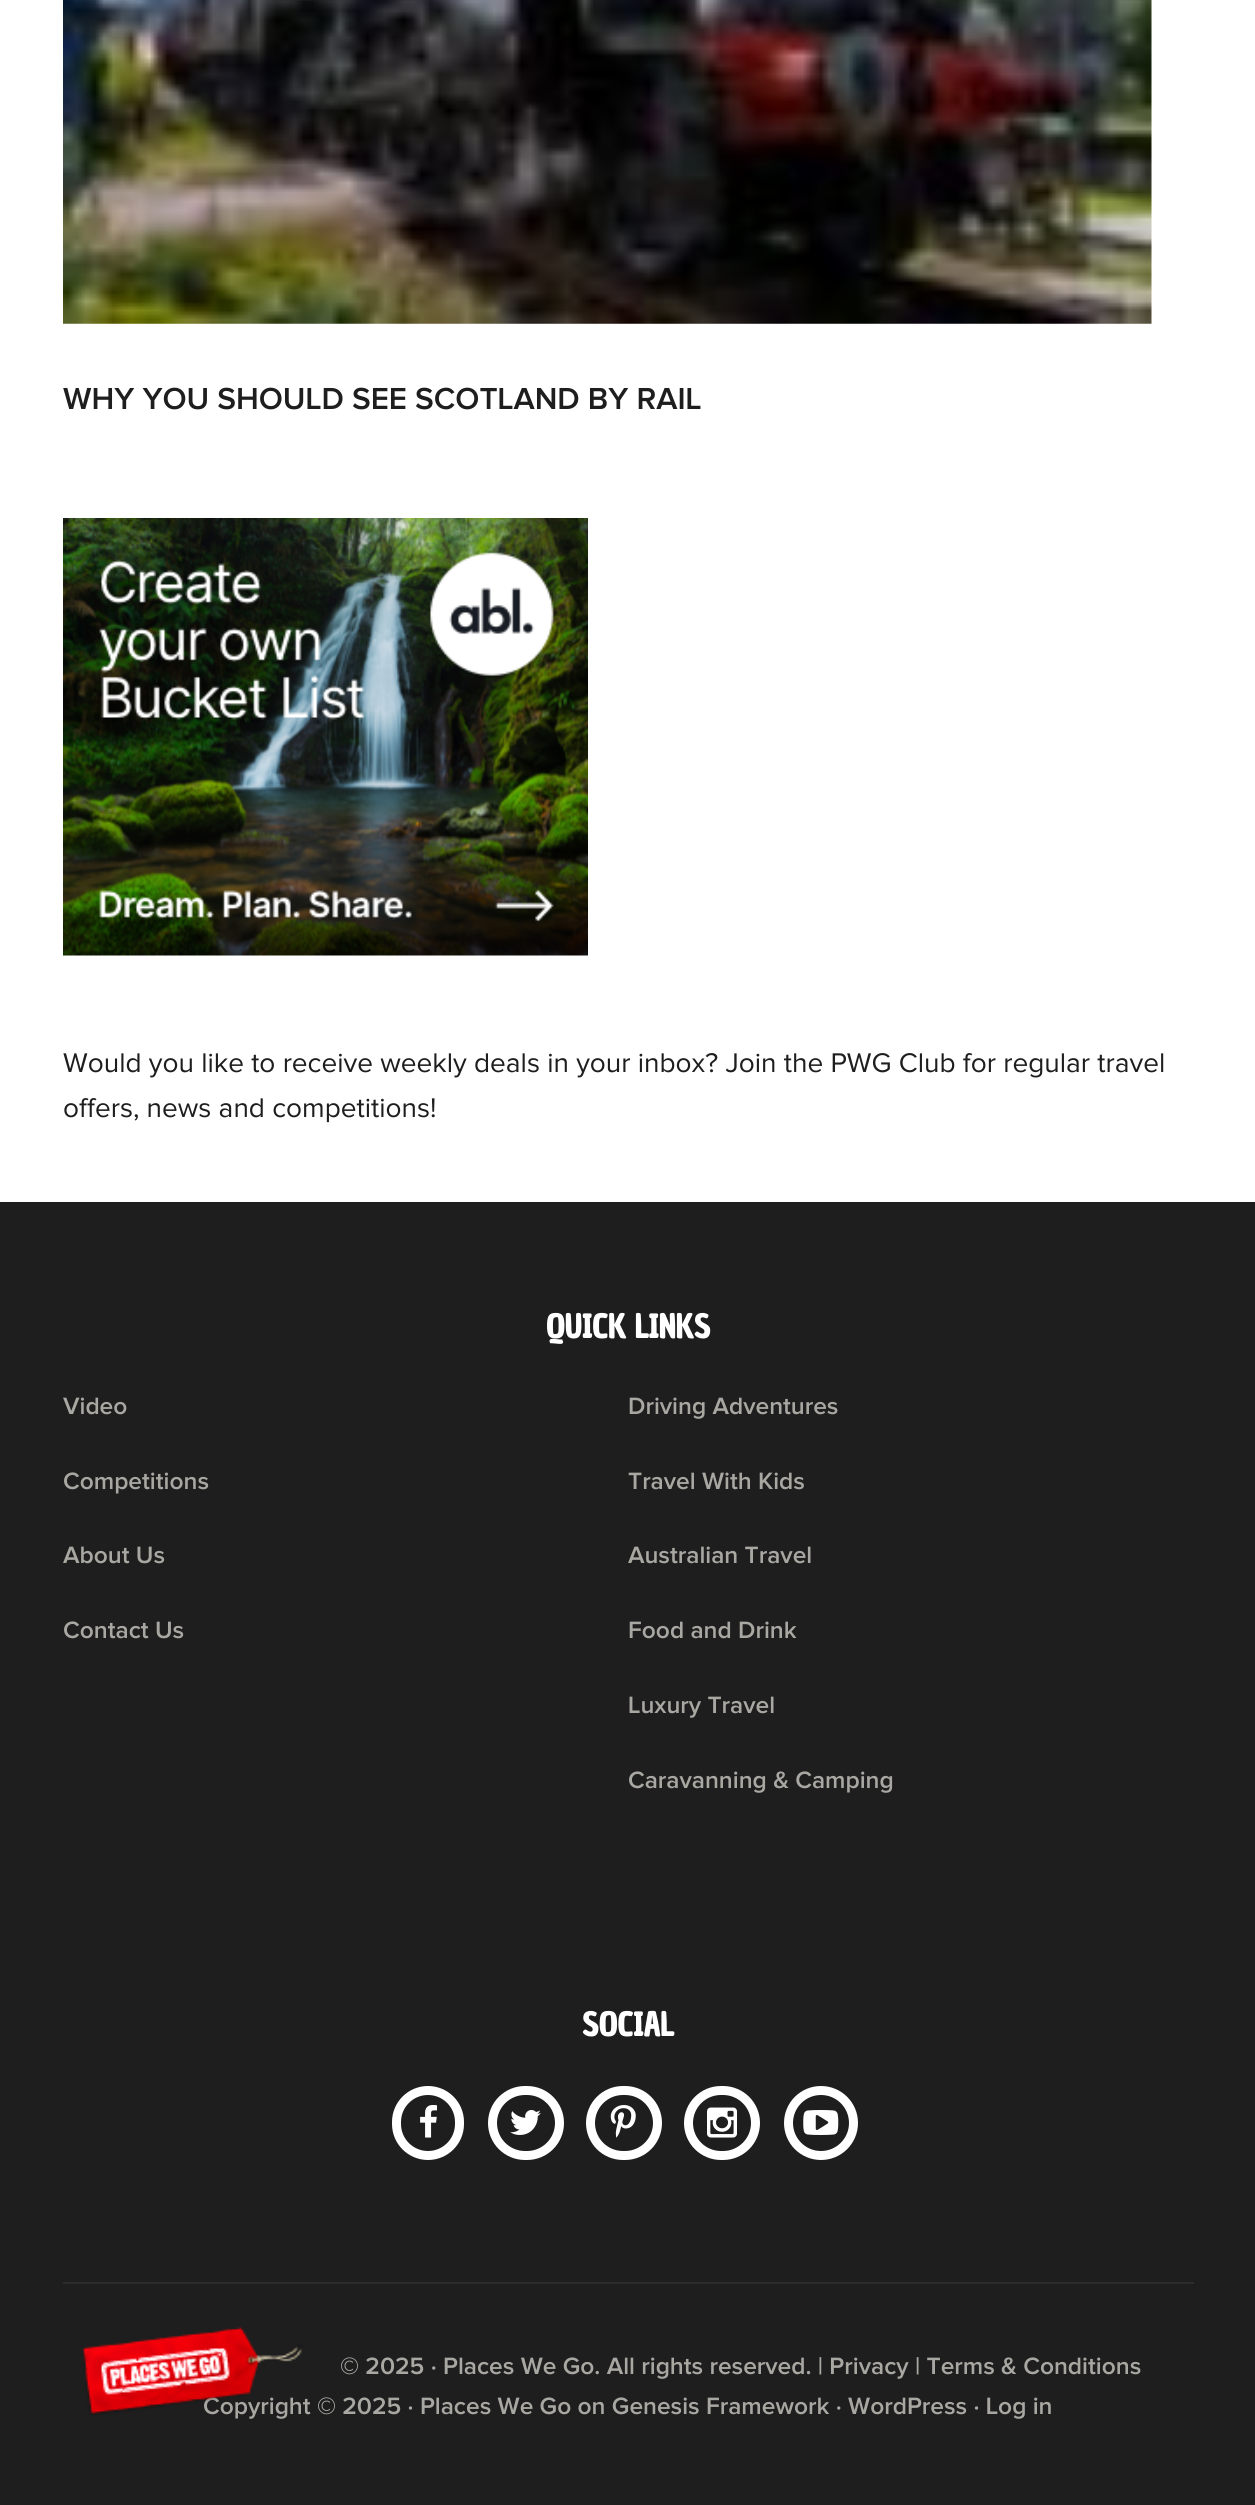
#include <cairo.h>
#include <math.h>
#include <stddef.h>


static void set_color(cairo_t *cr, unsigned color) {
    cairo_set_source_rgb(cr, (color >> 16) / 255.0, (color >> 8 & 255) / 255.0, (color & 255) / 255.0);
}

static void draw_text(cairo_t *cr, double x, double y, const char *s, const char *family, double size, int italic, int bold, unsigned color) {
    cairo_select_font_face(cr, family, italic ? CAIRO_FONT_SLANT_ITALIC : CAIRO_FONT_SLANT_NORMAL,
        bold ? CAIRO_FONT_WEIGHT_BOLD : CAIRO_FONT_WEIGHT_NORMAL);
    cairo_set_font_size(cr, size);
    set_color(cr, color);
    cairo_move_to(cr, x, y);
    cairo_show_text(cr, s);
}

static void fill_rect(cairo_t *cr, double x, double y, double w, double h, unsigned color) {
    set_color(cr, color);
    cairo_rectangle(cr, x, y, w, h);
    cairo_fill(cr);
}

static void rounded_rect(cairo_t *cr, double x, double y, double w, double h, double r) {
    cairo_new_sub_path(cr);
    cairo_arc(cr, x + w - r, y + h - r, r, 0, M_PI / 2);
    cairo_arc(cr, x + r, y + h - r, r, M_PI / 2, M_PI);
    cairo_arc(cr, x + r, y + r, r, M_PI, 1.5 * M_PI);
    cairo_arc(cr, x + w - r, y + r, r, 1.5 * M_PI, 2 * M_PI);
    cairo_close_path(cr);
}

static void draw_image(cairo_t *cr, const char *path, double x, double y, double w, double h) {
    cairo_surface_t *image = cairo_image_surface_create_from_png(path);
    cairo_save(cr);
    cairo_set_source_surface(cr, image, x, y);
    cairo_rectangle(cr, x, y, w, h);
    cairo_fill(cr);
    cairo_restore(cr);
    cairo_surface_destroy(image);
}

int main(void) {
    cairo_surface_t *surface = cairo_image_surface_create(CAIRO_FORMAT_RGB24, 1255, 2505);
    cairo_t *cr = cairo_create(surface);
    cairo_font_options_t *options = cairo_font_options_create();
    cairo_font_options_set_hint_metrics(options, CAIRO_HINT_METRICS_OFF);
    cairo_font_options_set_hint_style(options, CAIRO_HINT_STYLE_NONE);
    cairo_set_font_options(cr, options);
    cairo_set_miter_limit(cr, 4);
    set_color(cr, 0xFFFFFF);
    cairo_paint(cr);
    draw_image(cr, "assets/img1.png", 63, 0, 1089, 324);
    draw_text(cr, 63, 409, "WHY YOU SHOULD SEE SCOTLAND BY RAIL", "Proxima Nova SemiBold", 31.5, 0, 0, 0x1E1E1E);
    draw_image(cr, "assets/img2.png", 63, 518, 525, 438);
    draw_text(cr, 63, 1072, "Would you like to receive weekly deals in your inbox? Join the PWG Club for regular travel", "Proxima Nova", 28, 0, 0, 0x1E1E1E);
    draw_text(cr, 63, 1117, "offers, news and competitions!", "Proxima Nova", 28, 0, 0, 0x1E1E1E);
    fill_rect(cr, 0, 1202, 1255, 1303, 0x1E1E1E);
    draw_text(cr, 546, 1338, "QUICK LINKS", "Chau Philomene One", 31.5, 0, 1, 0xFFFFFF);
    draw_text(cr, 63, 1414, "Video", "Proxima Nova SemiBold", 24.5, 0, 0, 0xA9A7A2);
    draw_text(cr, 628, 1414, "Driving Adventures", "Proxima Nova SemiBold", 24.5, 0, 0, 0xA9A7A2);
    draw_text(cr, 63, 1489, "Competitions", "Proxima Nova SemiBold", 24.5, 0, 0, 0xA9A7A2);
    draw_text(cr, 628, 1489, "Travel With Kids", "Proxima Nova SemiBold", 24.5, 0, 0, 0xA9A7A2);
    draw_text(cr, 63, 1563, "About Us", "Proxima Nova SemiBold", 24.5, 0, 0, 0xA9A7A2);
    draw_text(cr, 628, 1563, "Australian Travel", "Proxima Nova SemiBold", 24.5, 0, 0, 0xA9A7A2);
    draw_text(cr, 63, 1638, "Contact Us", "Proxima Nova SemiBold", 24.5, 0, 0, 0xA9A7A2);
    draw_text(cr, 628, 1638, "Food and Drink", "Proxima Nova SemiBold", 24.5, 0, 0, 0xA9A7A2);
    draw_text(cr, 628, 1713, "Luxury Travel", "Proxima Nova SemiBold", 24.5, 0, 0, 0xA9A7A2);
    draw_text(cr, 628, 1788, "Caravanning & Camping", "Proxima Nova SemiBold", 24.5, 0, 0, 0xA9A7A2);
    draw_text(cr, 582, 2036, "SOCIAL", "Chau Philomene One", 31.5, 0, 1, 0xFFFFFF);
    rounded_rect(cr, 396.5, 2090.5, 63, 65, 31.5);
    cairo_set_line_width(cr, 9);
    cairo_stroke(cr);
    draw_image(cr, "assets/img3.png", 420, 2105, 17, 33);
    rounded_rect(cr, 492.5, 2090.5, 67, 65, 32.5);
    cairo_stroke(cr);
    draw_image(cr, "assets/img4.png", 510, 2110, 31, 25);
    rounded_rect(cr, 590.5, 2090.5, 67, 65, 32.5);
    cairo_stroke(cr);
    draw_image(cr, "assets/img5.png", 610, 2105, 26, 33);
    rounded_rect(cr, 688.5, 2090.5, 67, 65, 32.5);
    cairo_stroke(cr);
    draw_image(cr, "assets/img6.png", 707, 2107, 30, 31);
    cairo_arc(cr, 821, 2123, 32.5, 0, 2 * M_PI);
    cairo_stroke(cr);
    draw_image(cr, "assets/img7.png", 803, 2110, 36, 25);
    fill_rect(cr, 63, 2282, 1131, 2, 0x2C2C2B);
    draw_text(cr, 203, 2414, "Copyright © 2025 · Places We Go on Genesis Framework · WordPress · Log in", "Proxima Nova SemiBold", 24.5, 0, 0, 0xA9A7A2);
    draw_image(cr, "assets/img8.png", 82, 2327, 221, 88);
    draw_text(cr, 340, 2374, "© 2025 · Places We Go. All rights reserved. | Privacy | Terms & Conditions", "Proxima Nova SemiBold", 24.5, 0, 0, 0xA9A7A2);
    cairo_surface_write_to_png(surface, "output.png");
    cairo_font_options_destroy(options);
    cairo_destroy(cr);
    cairo_surface_destroy(surface);
    return 0;
}
